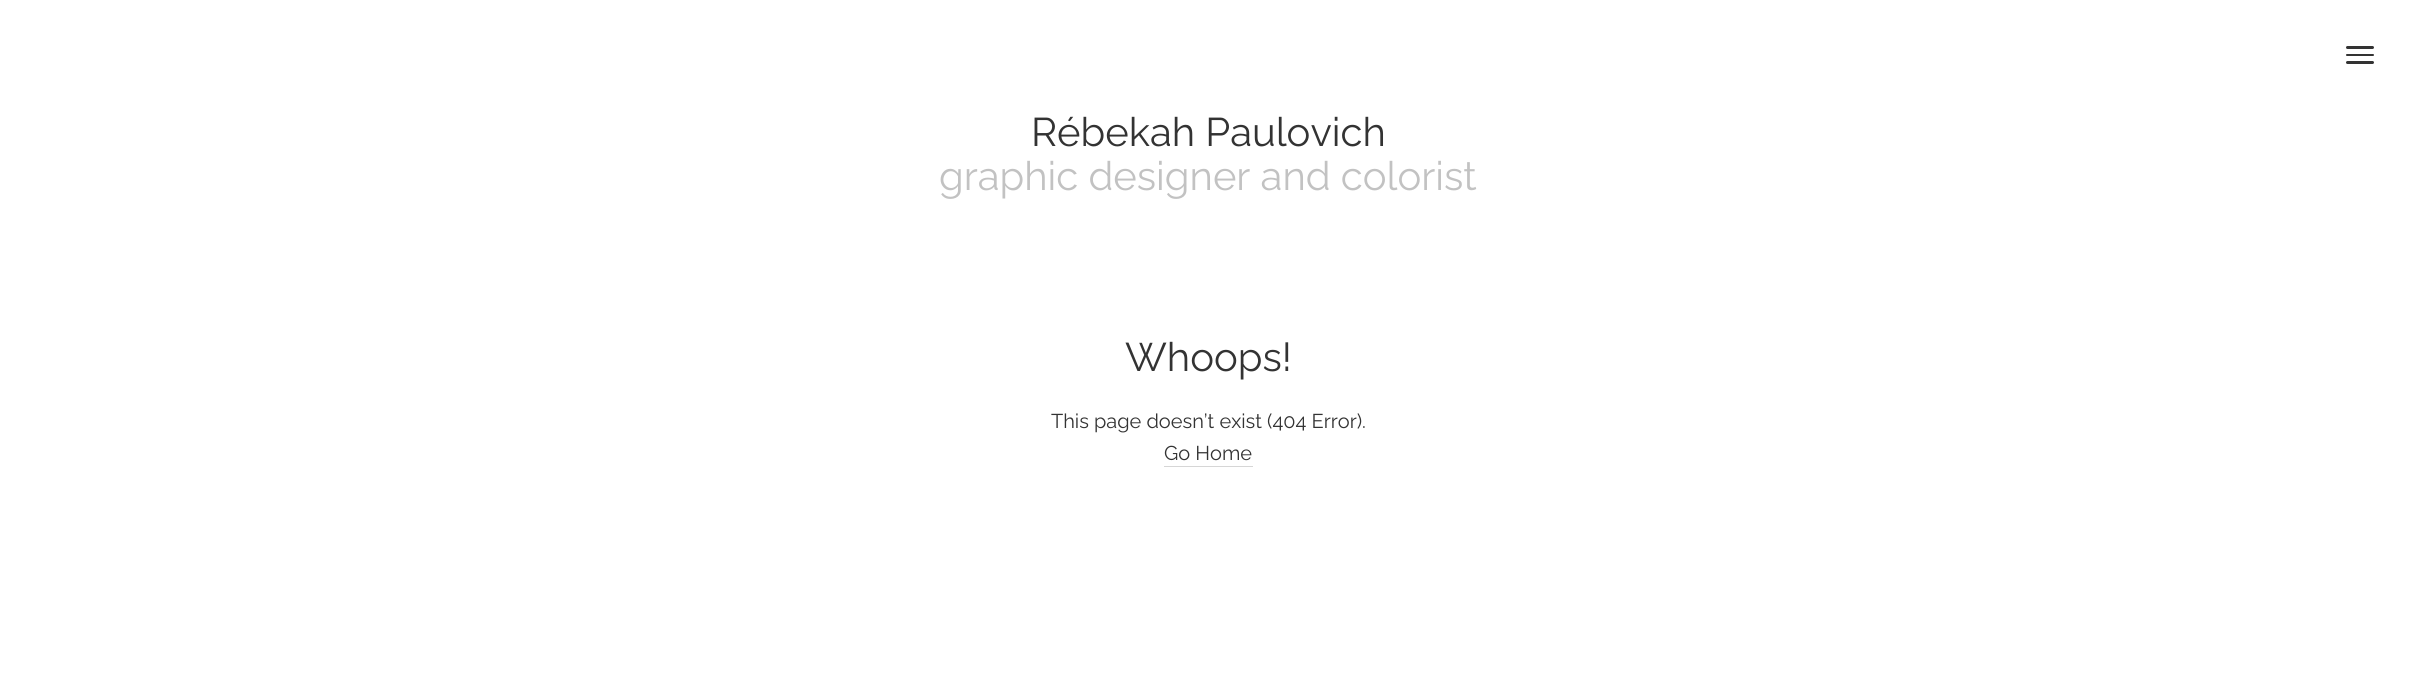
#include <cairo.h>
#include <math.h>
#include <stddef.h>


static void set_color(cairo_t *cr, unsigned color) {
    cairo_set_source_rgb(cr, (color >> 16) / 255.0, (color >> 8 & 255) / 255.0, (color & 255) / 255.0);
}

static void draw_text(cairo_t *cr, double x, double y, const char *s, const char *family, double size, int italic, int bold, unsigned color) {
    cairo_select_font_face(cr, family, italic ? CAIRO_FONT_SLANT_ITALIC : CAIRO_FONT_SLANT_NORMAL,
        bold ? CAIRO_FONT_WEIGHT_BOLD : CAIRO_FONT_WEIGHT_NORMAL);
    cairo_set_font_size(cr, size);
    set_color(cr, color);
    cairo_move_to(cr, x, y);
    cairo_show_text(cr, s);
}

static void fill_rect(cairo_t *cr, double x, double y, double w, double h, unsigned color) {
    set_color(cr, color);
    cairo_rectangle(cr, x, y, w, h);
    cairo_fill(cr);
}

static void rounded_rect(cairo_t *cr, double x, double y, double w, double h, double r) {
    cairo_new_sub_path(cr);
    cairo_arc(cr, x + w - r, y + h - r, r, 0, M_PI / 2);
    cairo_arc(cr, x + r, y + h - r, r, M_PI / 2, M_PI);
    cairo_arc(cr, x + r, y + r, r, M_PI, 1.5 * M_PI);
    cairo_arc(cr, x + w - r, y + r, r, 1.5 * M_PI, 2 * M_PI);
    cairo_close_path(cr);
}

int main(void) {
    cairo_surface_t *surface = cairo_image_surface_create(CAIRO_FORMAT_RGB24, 2416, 690);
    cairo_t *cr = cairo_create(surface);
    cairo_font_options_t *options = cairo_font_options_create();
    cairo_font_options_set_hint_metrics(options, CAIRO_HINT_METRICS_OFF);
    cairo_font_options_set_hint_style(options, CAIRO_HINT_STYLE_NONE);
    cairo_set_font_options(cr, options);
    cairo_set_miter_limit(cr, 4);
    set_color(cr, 0xFFFFFF);
    cairo_paint(cr);
    set_color(cr, 0x333333);
    rounded_rect(cr, 2346, 46, 28, 3, 1.5);
    cairo_fill(cr);
    rounded_rect(cr, 2346, 54, 28, 2, 1);
    cairo_fill(cr);
    rounded_rect(cr, 2346, 61, 28, 3, 1.5);
    cairo_fill(cr);
    draw_text(cr, 1031, 146, "Rébekah Paulovich", "Raleway Thin", 40, 0, 0, 0x333333);
    draw_text(cr, 939, 190, "graphic designer and colorist", "Raleway Thin", 40, 0, 0, 0xC2C2C2);
    draw_text(cr, 1125, 371, "Whoops!", "Raleway Thin", 40, 0, 0, 0x333333);
    draw_text(cr, 1051, 428, "This page doesn’t exist (404 Error).", "Raleway Thin", 20, 0, 0, 0x333333);
    draw_text(cr, 1164, 460, "Go Home", "Raleway Thin", 20, 0, 0, 0x333333);
    fill_rect(cr, 1164, 466, 89, 1, 0xD6D6D6);
    cairo_surface_write_to_png(surface, "output.png");
    cairo_font_options_destroy(options);
    cairo_destroy(cr);
    cairo_surface_destroy(surface);
    return 0;
}
